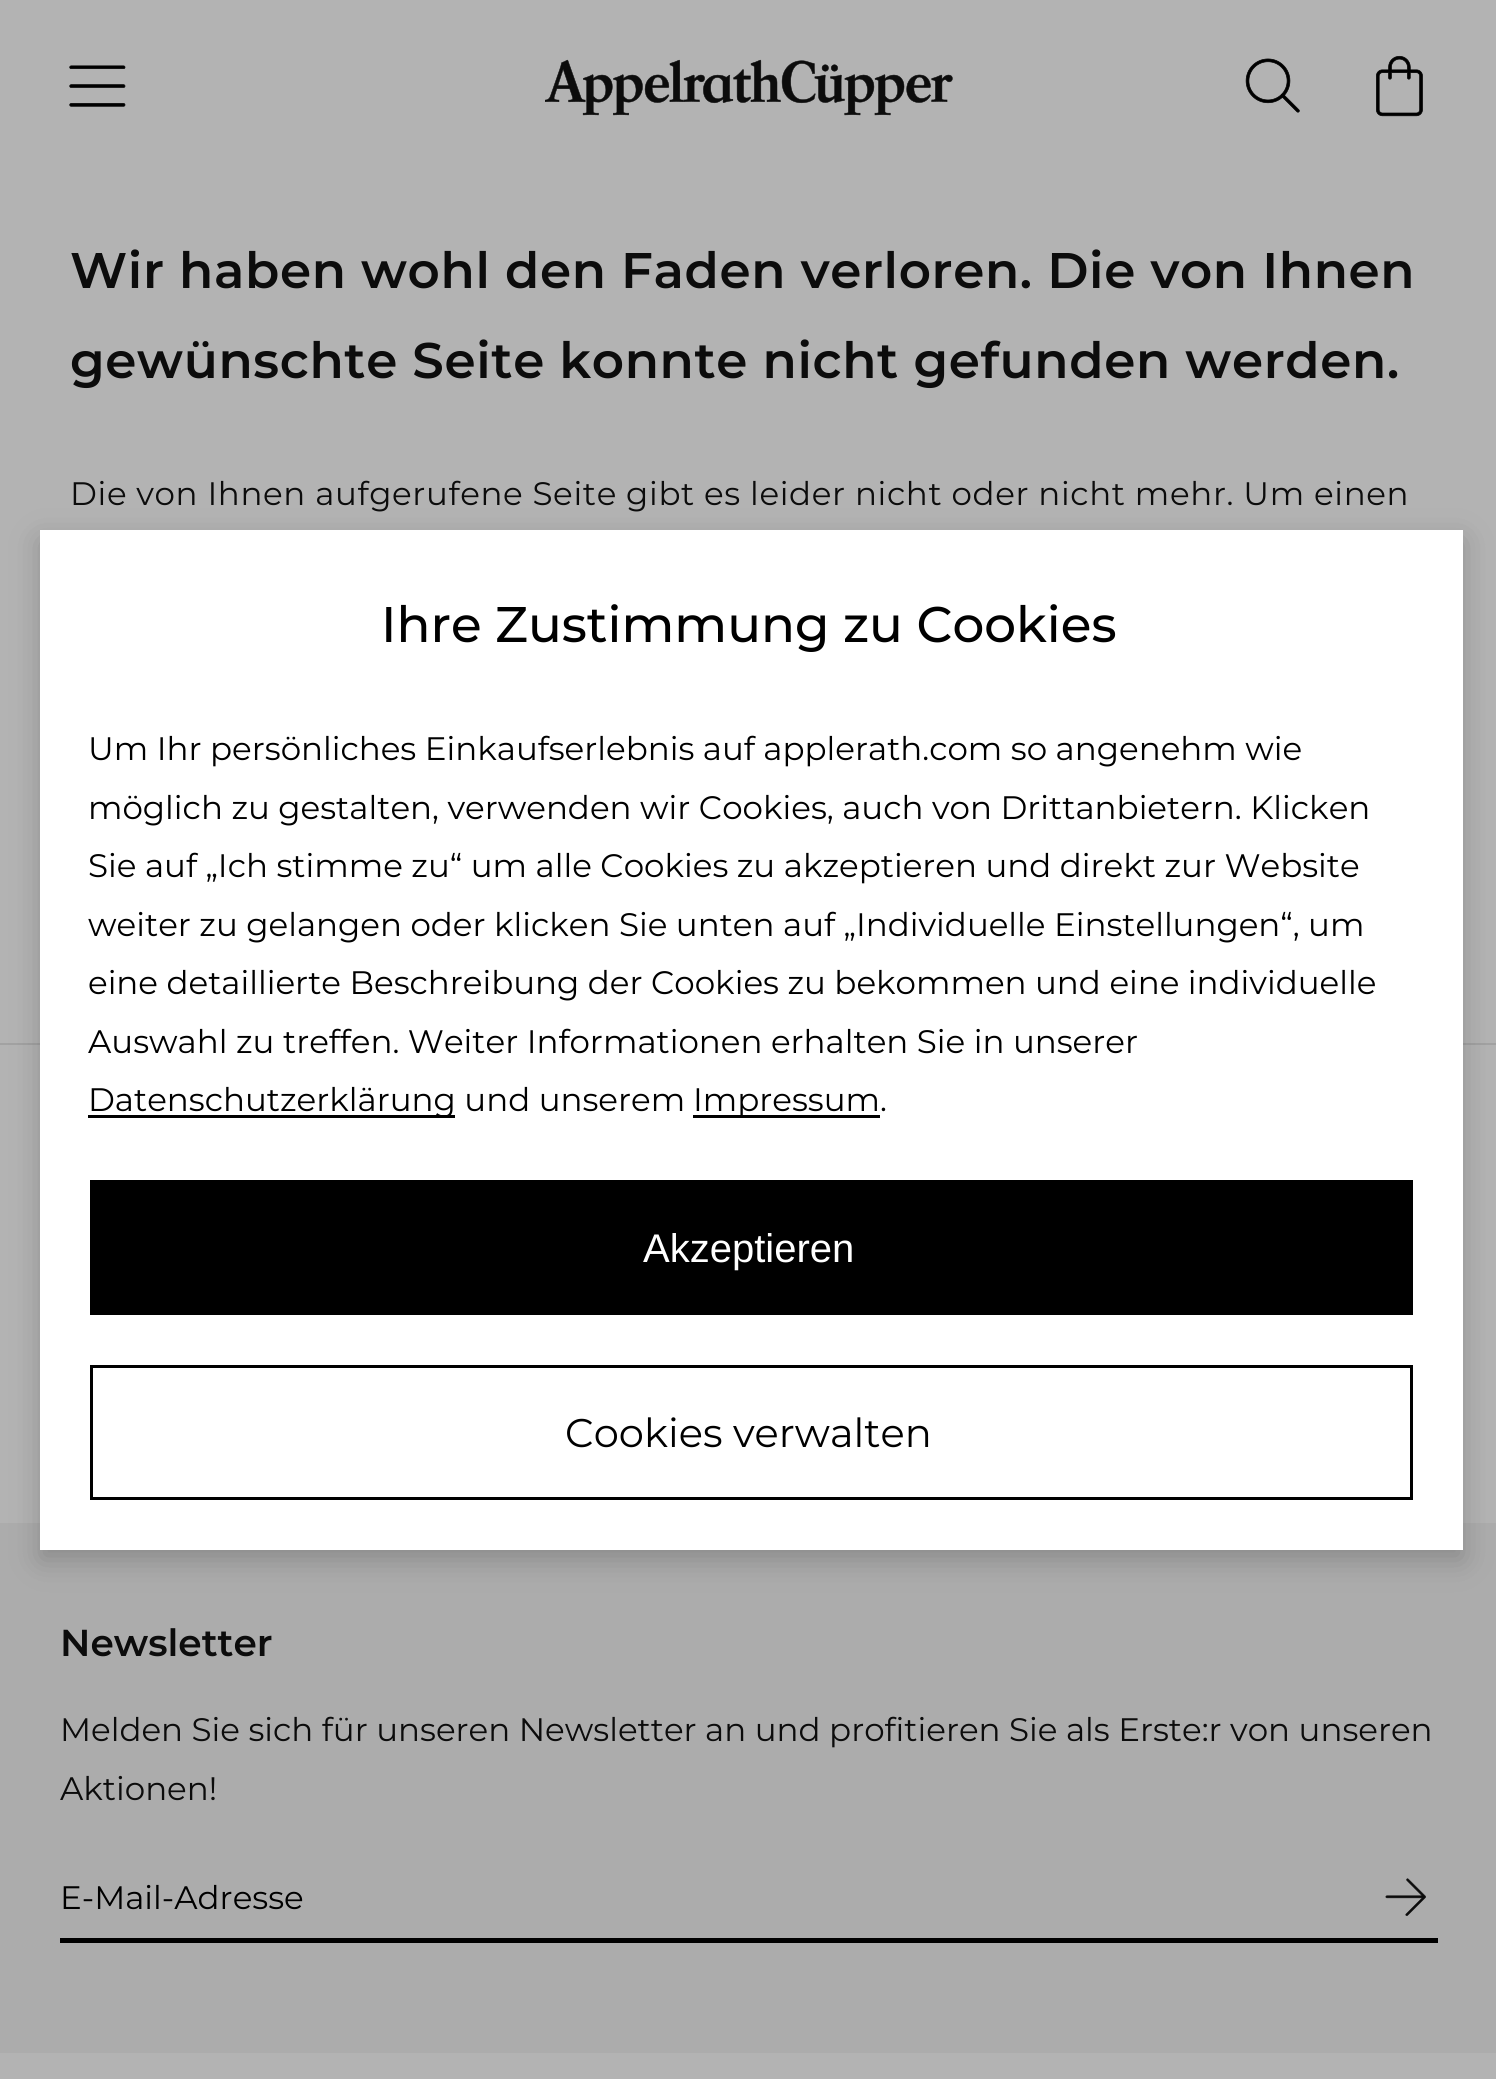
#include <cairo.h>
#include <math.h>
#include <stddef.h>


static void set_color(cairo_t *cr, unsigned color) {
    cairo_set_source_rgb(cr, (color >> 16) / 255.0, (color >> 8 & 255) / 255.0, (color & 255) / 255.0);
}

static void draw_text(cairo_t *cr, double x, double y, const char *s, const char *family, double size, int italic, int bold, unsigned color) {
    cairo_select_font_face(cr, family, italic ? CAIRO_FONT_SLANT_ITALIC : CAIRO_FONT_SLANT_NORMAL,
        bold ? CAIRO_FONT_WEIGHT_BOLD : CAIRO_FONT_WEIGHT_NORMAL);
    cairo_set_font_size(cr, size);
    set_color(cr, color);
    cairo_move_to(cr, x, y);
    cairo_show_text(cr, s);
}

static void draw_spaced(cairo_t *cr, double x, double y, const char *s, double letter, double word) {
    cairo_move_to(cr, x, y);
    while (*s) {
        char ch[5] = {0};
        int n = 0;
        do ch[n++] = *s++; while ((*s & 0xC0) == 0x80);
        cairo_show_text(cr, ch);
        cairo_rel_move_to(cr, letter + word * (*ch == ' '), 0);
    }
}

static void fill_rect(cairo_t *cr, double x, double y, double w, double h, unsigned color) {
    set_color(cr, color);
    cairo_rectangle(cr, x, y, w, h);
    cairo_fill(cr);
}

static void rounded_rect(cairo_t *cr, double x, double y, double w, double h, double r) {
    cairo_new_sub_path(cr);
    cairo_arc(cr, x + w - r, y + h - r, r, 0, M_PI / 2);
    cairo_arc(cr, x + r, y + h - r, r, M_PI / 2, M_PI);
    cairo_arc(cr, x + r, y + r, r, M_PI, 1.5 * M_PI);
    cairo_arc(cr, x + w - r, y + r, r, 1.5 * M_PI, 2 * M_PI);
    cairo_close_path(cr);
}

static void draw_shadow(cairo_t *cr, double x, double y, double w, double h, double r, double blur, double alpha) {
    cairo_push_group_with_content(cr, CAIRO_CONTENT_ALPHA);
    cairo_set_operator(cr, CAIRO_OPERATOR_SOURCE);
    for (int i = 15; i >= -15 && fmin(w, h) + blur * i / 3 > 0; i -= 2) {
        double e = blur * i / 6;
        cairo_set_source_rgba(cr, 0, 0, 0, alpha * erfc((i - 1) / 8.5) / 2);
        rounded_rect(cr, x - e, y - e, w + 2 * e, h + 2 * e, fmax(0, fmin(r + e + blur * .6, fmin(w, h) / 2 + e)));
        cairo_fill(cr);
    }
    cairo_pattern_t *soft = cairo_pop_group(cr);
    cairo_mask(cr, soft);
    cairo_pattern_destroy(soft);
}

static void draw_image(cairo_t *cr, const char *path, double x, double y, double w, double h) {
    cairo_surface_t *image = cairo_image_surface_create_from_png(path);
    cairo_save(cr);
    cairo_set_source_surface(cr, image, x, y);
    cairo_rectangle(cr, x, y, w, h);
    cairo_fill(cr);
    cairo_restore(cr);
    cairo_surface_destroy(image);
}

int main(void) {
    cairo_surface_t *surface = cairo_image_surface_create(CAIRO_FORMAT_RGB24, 1496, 2079);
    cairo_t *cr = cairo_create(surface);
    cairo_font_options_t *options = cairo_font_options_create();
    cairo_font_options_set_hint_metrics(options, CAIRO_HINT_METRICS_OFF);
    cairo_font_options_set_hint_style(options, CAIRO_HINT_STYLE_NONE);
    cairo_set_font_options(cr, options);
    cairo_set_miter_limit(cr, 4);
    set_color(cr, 0xB3B3B3);
    cairo_paint(cr);
    draw_image(cr, "assets/img1.png", 69, 65, 57, 42);
    draw_image(cr, "assets/img2.png", 545, 59, 408, 57);
    draw_image(cr, "assets/img3.png", 1245, 58, 55, 55);
    draw_image(cr, "assets/img4.png", 1376, 55, 47, 62);
    cairo_select_font_face(cr, "Montserrat SemiBold", CAIRO_FONT_SLANT_NORMAL, CAIRO_FONT_WEIGHT_NORMAL);
    cairo_set_font_size(cr, 50);
    set_color(cr, 0x0C0C0C);
    draw_spaced(cr, 70, 288, "Wir haben wohl den Faden verloren. Die von Ihnen", 0.65, 0);
    draw_spaced(cr, 70, 378, "gewünschte Seite konnte nicht gefunden werden.", 0.65, 0);
    cairo_select_font_face(cr, "Montserrat", CAIRO_FONT_SLANT_NORMAL, CAIRO_FONT_WEIGHT_NORMAL);
    cairo_set_font_size(cr, 32.5);
    draw_spaced(cr, 70, 505, "Die von Ihnen aufgerufene Seite gibt es leider nicht oder nicht mehr. Um einen", 0.65, 0);
    fill_rect(cr, 0, 1043, 1496, 2, 0xA2A2A2);
    fill_rect(cr, 0, 1523, 1496, 530, 0xACACAC);
    draw_text(cr, 60, 1656, "Newsletter", "Montserrat SemiBold", 37.5, 0, 0, 0x0C0C0C);
    draw_text(cr, 60, 1741, "Melden Sie sich für unseren Newsletter an und profitieren Sie als Erste:r von unseren", "Montserrat", 32.5, 0, 0, 0x0C0C0C);
    draw_text(cr, 60, 1800, "Aktionen!", "Montserrat", 32.5, 0, 0, 0x0C0C0C);
    fill_rect(cr, 60, 1938, 1378, 5, 0x000000);
    draw_text(cr, 60, 1909, "E-Mail-Adresse", "Montserrat", 32.5, 0, 0, 0x000000);
    draw_image(cr, "assets/img5.png", 1385, 1878, 41, 38);
    set_color(cr, 0x000000);
    draw_shadow(cr, 40, 540, 1423, 1020, 0, 15, 0.2);
    fill_rect(cr, 40, 530, 1423, 1020, 0xFFFFFF);
    draw_text(cr, 381, 642, "Ihre Zustimmung zu Cookies", "Montserrat Medium", 50, 0, 0, 0x000000);
    draw_text(cr, 88, 760, "Um Ihr persönliches Einkaufserlebnis auf applerath.com so angenehm wie", "Montserrat", 32.5, 0, 0, 0x000000);
    draw_text(cr, 88, 819, "möglich zu gestalten, verwenden wir Cookies, auch von Drittanbietern. Klicken", "Montserrat", 32.5, 0, 0, 0x000000);
    draw_text(cr, 88, 877, "Sie auf „Ich stimme zu“ um alle Cookies zu akzeptieren und direkt zur Website", "Montserrat", 32.5, 0, 0, 0x000000);
    draw_text(cr, 88, 936, "weiter zu gelangen oder klicken Sie unten auf „Individuelle Einstellungen“, um", "Montserrat", 32.5, 0, 0, 0x000000);
    draw_text(cr, 88, 994, "eine detaillierte Beschreibung der Cookies zu bekommen und eine individuelle", "Montserrat", 32.5, 0, 0, 0x000000);
    draw_text(cr, 88, 1053, "Auswahl zu treffen. Weiter Informationen erhalten Sie in unserer", "Montserrat", 32.5, 0, 0, 0x000000);
    fill_rect(cr, 88, 1115, 367, 3, 0x000000);
    draw_text(cr, 88, 1111, "Datenschutzerklärung und unserem", "Montserrat", 32.5, 0, 0, 0x000000);
    fill_rect(cr, 693, 1115, 187, 3, 0x000000);
    draw_text(cr, 693, 1111, "Impressum.", "Montserrat", 32.5, 0, 0, 0x000000);
    fill_rect(cr, 90, 1180, 1323, 135, 0x000000);
    draw_text(cr, 643, 1262, "Akzeptieren", "Liberation Sans", 40, 0, 0, 0xFFFFFF);
    cairo_rectangle(cr, 91.5, 1366.5, 1320, 132);
    set_color(cr, 0x000000);
    cairo_set_line_width(cr, 3);
    cairo_stroke(cr);
    draw_text(cr, 565, 1447, "Cookies verwalten", "Montserrat", 40, 0, 0, 0x000000);
    cairo_surface_write_to_png(surface, "output.png");
    cairo_font_options_destroy(options);
    cairo_destroy(cr);
    cairo_surface_destroy(surface);
    return 0;
}
